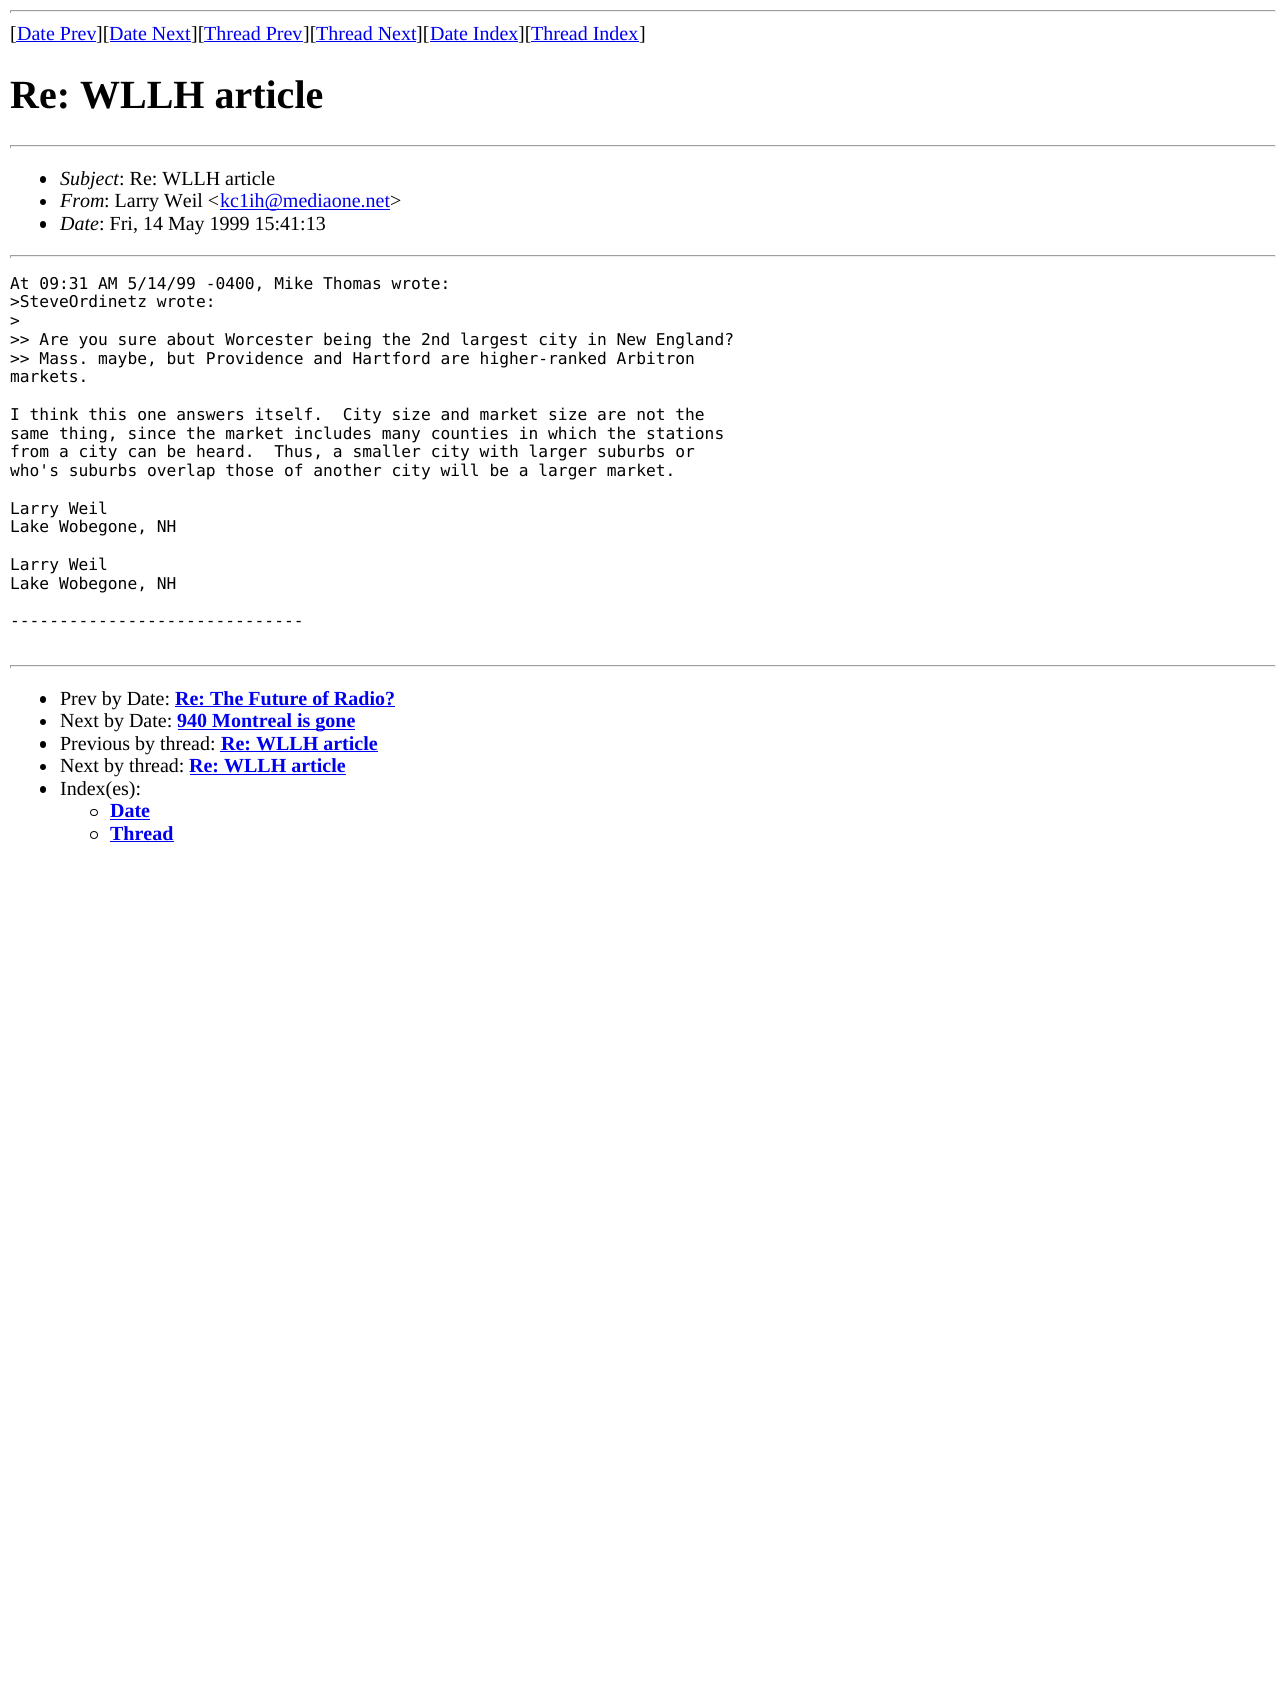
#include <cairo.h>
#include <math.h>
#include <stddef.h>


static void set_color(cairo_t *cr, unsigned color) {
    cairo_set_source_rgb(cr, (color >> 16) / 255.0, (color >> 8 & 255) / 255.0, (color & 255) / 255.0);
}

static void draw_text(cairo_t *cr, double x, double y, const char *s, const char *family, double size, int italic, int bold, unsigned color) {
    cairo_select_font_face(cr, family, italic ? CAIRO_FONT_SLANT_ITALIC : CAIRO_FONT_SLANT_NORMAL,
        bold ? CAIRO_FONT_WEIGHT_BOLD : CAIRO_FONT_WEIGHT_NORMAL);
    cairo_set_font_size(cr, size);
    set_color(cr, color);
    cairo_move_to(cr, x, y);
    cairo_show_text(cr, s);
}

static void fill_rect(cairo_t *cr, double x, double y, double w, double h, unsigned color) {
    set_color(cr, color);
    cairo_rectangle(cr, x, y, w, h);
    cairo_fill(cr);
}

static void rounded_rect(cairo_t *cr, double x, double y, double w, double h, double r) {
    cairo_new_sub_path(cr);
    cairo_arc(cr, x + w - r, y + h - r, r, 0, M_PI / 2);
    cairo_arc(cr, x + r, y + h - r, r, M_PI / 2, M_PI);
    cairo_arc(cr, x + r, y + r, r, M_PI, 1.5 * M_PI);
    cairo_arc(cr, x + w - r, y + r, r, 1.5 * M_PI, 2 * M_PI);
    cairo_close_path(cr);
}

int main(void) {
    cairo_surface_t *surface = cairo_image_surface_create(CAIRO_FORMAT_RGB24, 1286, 1682);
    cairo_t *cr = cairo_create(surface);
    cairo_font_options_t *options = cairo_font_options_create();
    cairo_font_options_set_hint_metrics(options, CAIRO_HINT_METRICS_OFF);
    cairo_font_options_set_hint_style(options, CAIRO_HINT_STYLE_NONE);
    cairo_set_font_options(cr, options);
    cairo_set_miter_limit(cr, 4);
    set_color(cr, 0xFFFFFF);
    cairo_paint(cr);
    fill_rect(cr, 10, 10, 1266, 1, 0x9F9F9F);
    fill_rect(cr, 1275, 10, 1, 3, 0xEEEEEE);
    fill_rect(cr, 10, 11, 1266, 1, 0xEEEEEE);
    fill_rect(cr, 10, 10, 1, 3, 0x9F9F9F);
    draw_text(cr, 10, 40, "[", "Liberation Serif", 20, 0, 0, 0x000000);
    draw_text(cr, 17, 40, "Date Prev", "Liberation Serif", 20, 0, 0, 0x0000EE);
    fill_rect(cr, 16, 41, 80, 1, 0x0000EE);
    draw_text(cr, 96, 40, "][", "Liberation Serif", 20, 0, 0, 0x000000);
    draw_text(cr, 109, 40, "Date Next", "Liberation Serif", 20, 0, 0, 0x0000EE);
    fill_rect(cr, 110, 41, 81, 1, 0x0000EE);
    draw_text(cr, 191, 40, "][", "Liberation Serif", 20, 0, 0, 0x000000);
    draw_text(cr, 204, 40, "Thread Prev", "Liberation Serif", 20, 0, 0, 0x0000EE);
    fill_rect(cr, 204, 41, 99, 1, 0x0000EE);
    draw_text(cr, 303, 40, "][", "Liberation Serif", 20, 0, 0, 0x000000);
    draw_text(cr, 316, 40, "Thread Next", "Liberation Serif", 20, 0, 0, 0x0000EE);
    fill_rect(cr, 316, 41, 100, 1, 0x0000EE);
    draw_text(cr, 416, 40, "][", "Liberation Serif", 20, 0, 0, 0x000000);
    draw_text(cr, 430, 40, "Date Index", "Liberation Serif", 20, 0, 0, 0x0000EE);
    fill_rect(cr, 430, 41, 88, 1, 0x0000EE);
    draw_text(cr, 518, 40, "][", "Liberation Serif", 20, 0, 0, 0x000000);
    draw_text(cr, 531, 40, "Thread Index", "Liberation Serif", 20, 0, 0, 0x0000EE);
    fill_rect(cr, 531, 41, 108, 1, 0x0000EE);
    draw_text(cr, 639, 40, "]", "Liberation Serif", 20, 0, 0, 0x000000);
    draw_text(cr, 10, 108, "Re: WLLH article", "Liberation Serif", 40, 0, 1, 0x000000);
    fill_rect(cr, 10, 145, 1266, 1, 0x9F9F9F);
    fill_rect(cr, 1275, 145, 1, 3, 0xEEEEEE);
    fill_rect(cr, 10, 146, 1266, 1, 0xEEEEEE);
    fill_rect(cr, 10, 145, 1, 3, 0x9F9F9F);
    set_color(cr, 0x000000);
    rounded_rect(cr, 40, 176, 6, 7, 3);
    cairo_fill(cr);
    draw_text(cr, 60, 185, "Subject", "Liberation Serif", 20, 1, 0, 0x000000);
    draw_text(cr, 119, 185, ": Re: WLLH article", "Liberation Serif", 20, 0, 0, 0x000000);
    cairo_new_path(cr);
    cairo_arc(cr, 43, 202, 3, 0, 2 * M_PI);
    cairo_fill(cr);
    draw_text(cr, 60, 207, "From", "Liberation Serif", 20, 1, 0, 0x000000);
    draw_text(cr, 104, 207, ": Larry Weil <", "Liberation Serif", 20, 0, 0, 0x000000);
    fill_rect(cr, 220, 209, 170, 1, 0x0000EE);
    draw_text(cr, 220, 207, "kc1ih@mediaone.net", "Liberation Serif", 20, 0, 0, 0x0000EE);
    draw_text(cr, 390, 207, ">", "Liberation Serif", 20, 0, 0, 0x000000);
    rounded_rect(cr, 40, 221, 6, 7, 3);
    cairo_fill(cr);
    draw_text(cr, 60, 230, "Date", "Liberation Serif", 20, 1, 0, 0x000000);
    draw_text(cr, 99, 230, ": Fri, 14 May 1999 15:41:13", "Liberation Serif", 20, 0, 0, 0x000000);
    fill_rect(cr, 10, 255, 1266, 1, 0x9F9F9F);
    fill_rect(cr, 1275, 255, 1, 3, 0xEEEEEE);
    fill_rect(cr, 10, 256, 1266, 1, 0xEEEEEE);
    fill_rect(cr, 10, 255, 1, 3, 0x9F9F9F);
    draw_text(cr, 10, 289, "At 09:31 AM 5/14/99 -0400, Mike Thomas wrote:", "DejaVu Sans Mono", 16.25, 0, 0, 0x000000);
    draw_text(cr, 10, 307, ">SteveOrdinetz wrote:", "DejaVu Sans Mono", 16.25, 0, 0, 0x000000);
    draw_text(cr, 10, 326, ">", "DejaVu Sans Mono", 16.25, 0, 0, 0x000000);
    draw_text(cr, 10, 345, ">> Are you sure about Worcester being the 2nd largest city in New England?", "DejaVu Sans Mono", 16.25, 0, 0, 0x000000);
    draw_text(cr, 10, 364, ">> Mass. maybe, but Providence and Hartford are higher-ranked Arbitron", "DejaVu Sans Mono", 16.25, 0, 0, 0x000000);
    draw_text(cr, 10, 382, "markets.", "DejaVu Sans Mono", 16.25, 0, 0, 0x000000);
    draw_text(cr, 10, 420, "I think this one answers itself.  City size and market size are not the", "DejaVu Sans Mono", 16.25, 0, 0, 0x000000);
    draw_text(cr, 10, 439, "same thing, since the market includes many counties in which the stations", "DejaVu Sans Mono", 16.25, 0, 0, 0x000000);
    draw_text(cr, 10, 457, "from a city can be heard.  Thus, a smaller city with larger suburbs or", "DejaVu Sans Mono", 16.25, 0, 0, 0x000000);
    draw_text(cr, 10, 476, "who's suburbs overlap those of another city will be a larger market.", "DejaVu Sans Mono", 16.25, 0, 0, 0x000000);
    draw_text(cr, 10, 514, "Larry Weil", "DejaVu Sans Mono", 16.25, 0, 0, 0x000000);
    draw_text(cr, 10, 532, "Lake Wobegone, NH", "DejaVu Sans Mono", 16.25, 0, 0, 0x000000);
    draw_text(cr, 10, 570, "Larry Weil", "DejaVu Sans Mono", 16.25, 0, 0, 0x000000);
    draw_text(cr, 10, 589, "Lake Wobegone, NH", "DejaVu Sans Mono", 16.25, 0, 0, 0x000000);
    draw_text(cr, 10, 626, "------------------------------", "DejaVu Sans Mono", 16.25, 0, 0, 0x000000);
    fill_rect(cr, 10, 665, 1266, 1, 0x9F9F9F);
    fill_rect(cr, 1275, 665, 1, 3, 0xEEEEEE);
    fill_rect(cr, 10, 666, 1266, 1, 0xEEEEEE);
    fill_rect(cr, 10, 665, 1, 3, 0x9F9F9F);
    set_color(cr, 0x000000);
    rounded_rect(cr, 40, 696, 6, 7, 3);
    cairo_fill(cr);
    draw_text(cr, 60, 705, "Prev by Date:", "Liberation Serif", 20, 0, 0, 0x000000);
    draw_text(cr, 175, 705, "Re: The Future of Radio?", "Liberation Serif", 20, 0, 1, 0x0000EE);
    fill_rect(cr, 175, 706, 220, 1, 0x0000EE);
    set_color(cr, 0x000000);
    cairo_new_path(cr);
    cairo_arc(cr, 43, 722, 3, 0, 2 * M_PI);
    cairo_fill(cr);
    draw_text(cr, 60, 727, "Next by Date:", "Liberation Serif", 20, 0, 0, 0x000000);
    fill_rect(cr, 178, 729, 177, 1, 0x0000EE);
    draw_text(cr, 177, 727, "940 Montreal is gone", "Liberation Serif", 20, 0, 1, 0x0000EE);
    set_color(cr, 0x000000);
    rounded_rect(cr, 40, 741, 6, 7, 3);
    cairo_fill(cr);
    draw_text(cr, 60, 750, "Previous by thread:", "Liberation Serif", 20, 0, 0, 0x000000);
    draw_text(cr, 221, 750, "Re: WLLH article", "Liberation Serif", 20, 0, 1, 0x0000EE);
    fill_rect(cr, 220, 751, 158, 1, 0x0000EE);
    set_color(cr, 0x000000);
    cairo_new_path(cr);
    cairo_arc(cr, 43, 767, 3, 0, 2 * M_PI);
    cairo_fill(cr);
    draw_text(cr, 60, 772, "Next by thread:", "Liberation Serif", 20, 0, 0, 0x000000);
    draw_text(cr, 189, 772, "Re: WLLH article", "Liberation Serif", 20, 0, 1, 0x0000EE);
    fill_rect(cr, 190, 774, 156, 1, 0x0000EE);
    set_color(cr, 0x000000);
    rounded_rect(cr, 40, 786, 6, 7, 3);
    cairo_fill(cr);
    draw_text(cr, 60, 795, "Index(es):", "Liberation Serif", 20, 0, 0, 0x000000);
    rounded_rect(cr, 90.5, 809.5, 7, 6, 3);
    cairo_set_line_width(cr, 1);
    cairo_stroke(cr);
    draw_text(cr, 110, 817, "Date", "Liberation Serif", 20, 0, 1, 0x0000EE);
    fill_rect(cr, 110, 819, 40, 1, 0x0000EE);
    cairo_new_path(cr);
    cairo_arc(cr, 94, 835, 3.5, 0, 2 * M_PI);
    set_color(cr, 0x000000);
    cairo_stroke(cr);
    draw_text(cr, 110, 840, "Thread", "Liberation Serif", 20, 0, 1, 0x0000EE);
    fill_rect(cr, 110, 841, 64, 1, 0x0000EE);
    cairo_surface_write_to_png(surface, "output.png");
    cairo_font_options_destroy(options);
    cairo_destroy(cr);
    cairo_surface_destroy(surface);
    return 0;
}
